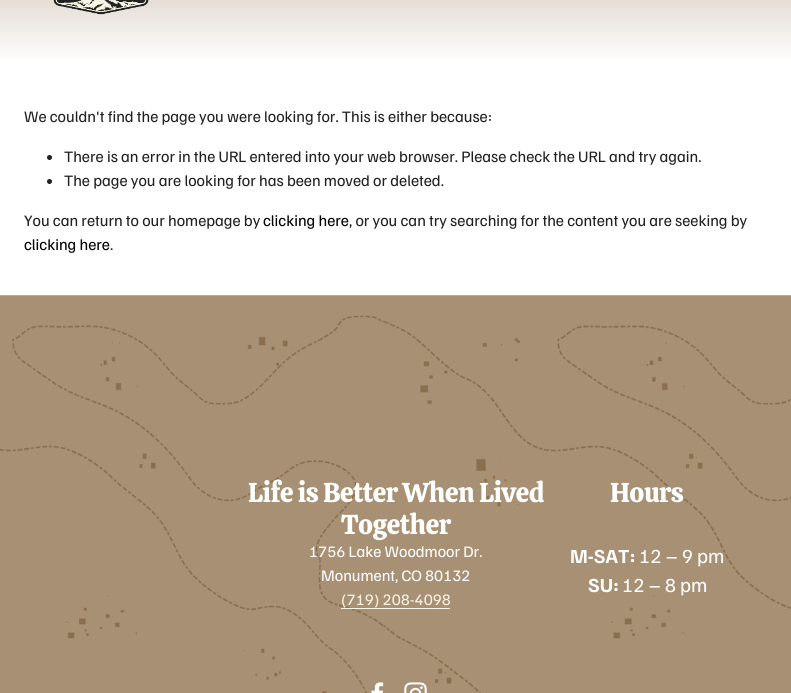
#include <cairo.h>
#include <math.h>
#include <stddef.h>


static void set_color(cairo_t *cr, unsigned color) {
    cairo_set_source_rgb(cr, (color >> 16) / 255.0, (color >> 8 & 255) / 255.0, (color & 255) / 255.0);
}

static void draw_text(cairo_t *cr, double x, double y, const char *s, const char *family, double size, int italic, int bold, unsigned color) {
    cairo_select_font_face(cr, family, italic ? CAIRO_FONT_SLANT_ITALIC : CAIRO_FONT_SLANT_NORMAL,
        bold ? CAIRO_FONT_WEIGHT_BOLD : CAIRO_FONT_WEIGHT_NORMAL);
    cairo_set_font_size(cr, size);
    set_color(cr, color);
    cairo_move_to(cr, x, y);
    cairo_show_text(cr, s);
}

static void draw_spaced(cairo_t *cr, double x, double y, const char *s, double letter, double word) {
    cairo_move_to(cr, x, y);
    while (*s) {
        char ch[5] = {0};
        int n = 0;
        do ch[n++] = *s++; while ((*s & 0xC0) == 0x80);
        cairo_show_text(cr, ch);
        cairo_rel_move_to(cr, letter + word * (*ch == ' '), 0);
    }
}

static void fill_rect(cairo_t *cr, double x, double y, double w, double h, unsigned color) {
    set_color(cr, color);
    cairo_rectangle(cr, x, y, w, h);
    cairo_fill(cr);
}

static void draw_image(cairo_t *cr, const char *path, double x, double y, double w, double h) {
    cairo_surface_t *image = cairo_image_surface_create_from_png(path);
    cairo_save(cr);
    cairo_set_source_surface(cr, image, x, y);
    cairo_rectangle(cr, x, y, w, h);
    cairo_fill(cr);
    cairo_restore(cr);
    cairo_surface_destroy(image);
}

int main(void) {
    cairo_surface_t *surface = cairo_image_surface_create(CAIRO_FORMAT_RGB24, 791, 693);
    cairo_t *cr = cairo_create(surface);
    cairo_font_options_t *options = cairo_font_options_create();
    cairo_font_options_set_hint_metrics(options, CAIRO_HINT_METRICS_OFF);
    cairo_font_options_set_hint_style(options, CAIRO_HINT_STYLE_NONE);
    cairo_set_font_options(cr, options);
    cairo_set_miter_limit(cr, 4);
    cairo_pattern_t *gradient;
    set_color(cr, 0xFFFFFF);
    cairo_paint(cr);
    gradient = cairo_pattern_create_linear(396, -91, 396, 64);
    cairo_pattern_add_color_stop_rgba(gradient, 0, 0.745, 0.682, 0.612, 1);
    cairo_pattern_add_color_stop_rgba(gradient, 1, 1, 1, 1, 1);
    cairo_set_source(cr, gradient);
    cairo_pattern_destroy(gradient);
    cairo_rectangle(cr, 0, 0, 791, 60);
    cairo_fill(cr);
    draw_image(cr, "assets/img1.png", 53, 0, 96, 15);
    draw_text(cr, 24, 122, "We couldn't find the page you were looking for. This is either because:", "Familjen Grotesk", 16, 0, 0, 0x202120);
    cairo_new_path(cr);
    cairo_arc(cr, 49.5, 157.5, 2.5, 0, 2 * M_PI);
    cairo_fill(cr);
    draw_text(cr, 64, 162, "There is an error in the URL entered into your web browser. Please check the URL and try again.", "Familjen Grotesk", 16, 0, 0, 0x202120);
    cairo_new_path(cr);
    cairo_arc(cr, 49.5, 181.5, 2.5, 0, 2 * M_PI);
    cairo_fill(cr);
    draw_text(cr, 64, 186, "The page you are looking for has been moved or deleted.", "Familjen Grotesk", 16, 0, 0, 0x202120);
    draw_text(cr, 24, 226, "You can return to our homepage by", "Familjen Grotesk", 16, 0, 0, 0x202120);
    draw_text(cr, 263, 226, "clicking here", "Familjen Grotesk", 16, 0, 0, 0x000000);
    draw_text(cr, 349, 226, ", or you can try searching for the content you are seeking by", "Familjen Grotesk", 16, 0, 0, 0x202120);
    draw_text(cr, 24, 250, "clicking here", "Familjen Grotesk", 16, 0, 0, 0x000000);
    draw_text(cr, 110, 250, ".", "Familjen Grotesk", 16, 0, 0, 0x202120);
    draw_image(cr, "assets/img2.png", 0, 295, 791, 398);
    cairo_select_font_face(cr, "Calistoga", CAIRO_FONT_SLANT_NORMAL, CAIRO_FONT_WEIGHT_NORMAL);
    cairo_set_font_size(cr, 27.4);
    set_color(cr, 0xFFFFFF);
    draw_spaced(cr, 248, 502, "Life is Better When Lived", -0.55, 0);
    draw_spaced(cr, 341, 534, "Together", -0.55, 0);
    draw_spaced(cr, 610, 502, "Hours", -0.55, 0);
    draw_text(cr, 570, 563, "M-SAT:", "Familjen Grotesk", 20, 0, 1, 0xFFFFFF);
    draw_text(cr, 639, 563, "12 – 9 pm", "Familjen Grotesk", 20, 0, 0, 0xFFFFFF);
    draw_text(cr, 588, 592, "SU:", "Familjen Grotesk", 20, 0, 1, 0xFFFFFF);
    draw_text(cr, 622, 592, "12 – 8 pm", "Familjen Grotesk", 20, 0, 0, 0xFFFFFF);
    draw_text(cr, 309, 557, "1756 Lake Woodmoor Dr.", "Familjen Grotesk", 16, 0, 0, 0xFFFFFF);
    draw_text(cr, 321, 581, "Monument, CO 80132", "Familjen Grotesk", 16, 0, 0, 0xFFFFFF);
    draw_text(cr, 341, 605, "(719) 208-4098", "Familjen Grotesk", 16, 0, 0, 0xFCF5E3);
    fill_rect(cr, 341, 608, 109, 1, 0xFCF5E3);
    draw_image(cr, "assets/img3.png", 371, 682, 13, 11);
    draw_image(cr, "assets/img4.png", 404, 682, 23, 11);
    cairo_surface_write_to_png(surface, "output.png");
    cairo_font_options_destroy(options);
    cairo_destroy(cr);
    cairo_surface_destroy(surface);
    return 0;
}
